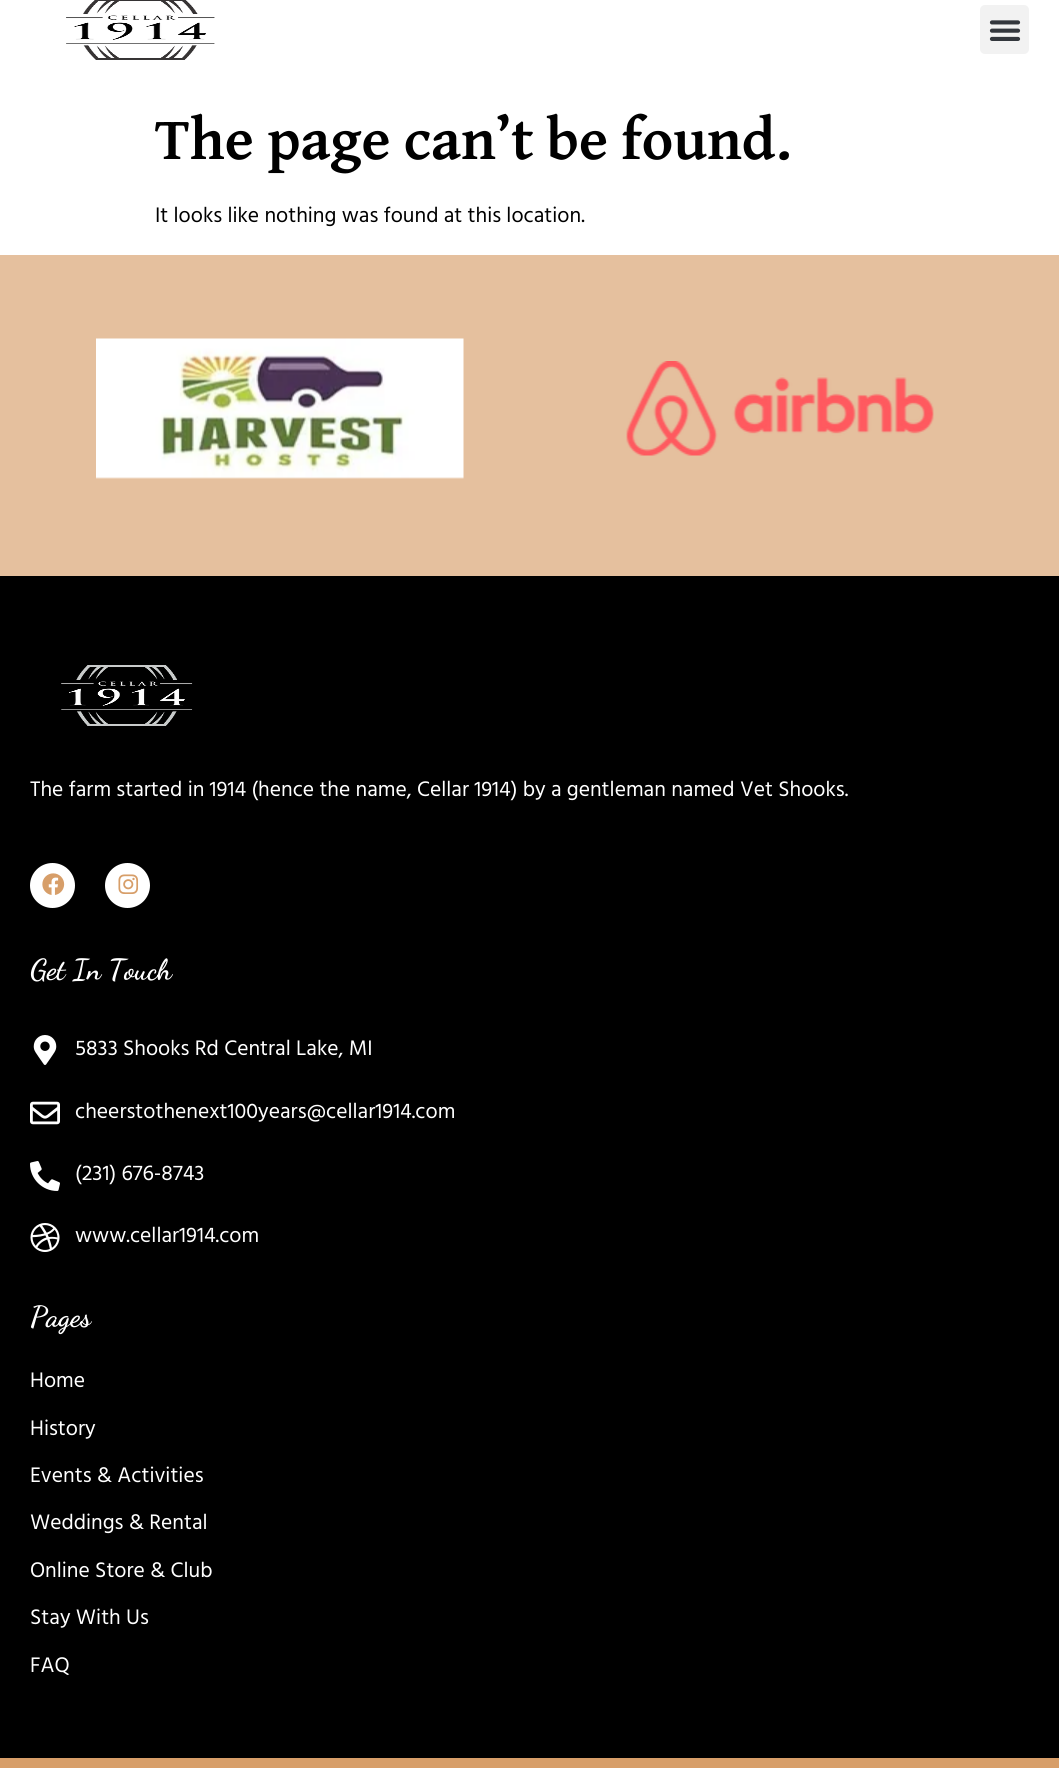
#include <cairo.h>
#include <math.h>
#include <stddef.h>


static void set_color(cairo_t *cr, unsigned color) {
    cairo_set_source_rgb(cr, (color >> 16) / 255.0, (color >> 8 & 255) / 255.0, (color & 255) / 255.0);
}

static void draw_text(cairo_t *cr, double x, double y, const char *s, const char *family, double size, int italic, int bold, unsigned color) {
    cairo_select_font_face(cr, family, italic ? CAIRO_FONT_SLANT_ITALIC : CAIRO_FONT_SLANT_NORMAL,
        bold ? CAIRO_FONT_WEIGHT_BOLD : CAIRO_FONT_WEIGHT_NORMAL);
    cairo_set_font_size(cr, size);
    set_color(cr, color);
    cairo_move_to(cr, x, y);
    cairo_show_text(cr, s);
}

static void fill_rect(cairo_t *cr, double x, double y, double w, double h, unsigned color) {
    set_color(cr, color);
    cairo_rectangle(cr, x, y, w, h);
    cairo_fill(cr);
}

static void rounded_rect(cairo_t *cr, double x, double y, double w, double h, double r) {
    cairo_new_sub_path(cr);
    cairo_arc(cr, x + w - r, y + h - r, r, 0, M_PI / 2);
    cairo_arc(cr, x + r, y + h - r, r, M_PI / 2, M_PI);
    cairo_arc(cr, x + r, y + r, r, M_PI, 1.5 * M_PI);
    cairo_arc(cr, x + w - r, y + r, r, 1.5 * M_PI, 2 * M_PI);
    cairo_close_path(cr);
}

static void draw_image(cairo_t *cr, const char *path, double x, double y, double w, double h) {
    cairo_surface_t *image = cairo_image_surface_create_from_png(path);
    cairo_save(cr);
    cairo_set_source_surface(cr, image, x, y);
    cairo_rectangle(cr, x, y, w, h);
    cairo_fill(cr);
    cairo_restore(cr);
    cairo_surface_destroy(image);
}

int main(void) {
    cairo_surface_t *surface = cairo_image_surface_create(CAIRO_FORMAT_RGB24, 1059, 1768);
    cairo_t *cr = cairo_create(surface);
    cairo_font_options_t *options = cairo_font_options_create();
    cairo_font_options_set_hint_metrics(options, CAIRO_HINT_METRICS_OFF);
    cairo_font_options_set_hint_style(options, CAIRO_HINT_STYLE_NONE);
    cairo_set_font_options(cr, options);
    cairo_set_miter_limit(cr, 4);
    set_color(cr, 0xFFFFFF);
    cairo_paint(cr);
    draw_image(cr, "assets/img1.png", 66, 0, 149, 60);
    set_color(cr, 0xF2F2F2);
    rounded_rect(cr, 980, 5, 49, 49, 5);
    cairo_fill(cr);
    draw_image(cr, "assets/img2.png", 989, 20, 32, 21);
    draw_text(cr, 155, 159, "The page can’t be found.", "Gentium Plus", 60, 0, 1, 0x000000);
    draw_text(cr, 155, 222, "It looks like nothing was found at this location.", "Hind Madurai", 21.6, 0, 0, 0x000000);
    fill_rect(cr, 0, 255, 1059, 321, 0xE5C09E);
    draw_image(cr, "assets/img3.png", 96, 338, 368, 141);
    draw_image(cr, "assets/img4.png", 626, 361, 308, 95);
    fill_rect(cr, 0, 576, 1059, 1182, 0x000000);
    draw_image(cr, "assets/img5.png", 61, 665, 132, 61);
    draw_text(cr, 30, 796, "The farm started in 1914 (hence the name, Cellar 1914) by a gentleman named Vet Shooks.", "Hind Madurai", 21.6, 0, 0, 0xFFFFFF);
    cairo_new_path(cr);
    cairo_arc(cr, 52.5, 885.5, 22.5, 0, 2 * M_PI);
    cairo_fill(cr);
    draw_image(cr, "assets/img6.png", 42, 873, 23, 22);
    cairo_arc(cr, 127.5, 885.5, 22.5, 0, 2 * M_PI);
    cairo_fill(cr);
    draw_image(cr, "assets/img7.png", 118, 874, 21, 20);
    draw_text(cr, 30, 979, "Get In Touch", "Dancing Script", 29, 0, 1, 0xFFFFFF);
    draw_image(cr, "assets/img8.png", 33, 1035, 24, 30);
    draw_text(cr, 75, 1055, "5833 Shooks Rd Central Lake, MI", "Hind Madurai", 21.6, 0, 0, 0xFFFFFF);
    draw_image(cr, "assets/img9.png", 30, 1101, 30, 24);
    draw_text(cr, 75, 1118, "cheerstothenext100years@cellar1914.com", "Hind Madurai", 21.6, 0, 0, 0xFFFFFF);
    draw_image(cr, "assets/img10.png", 30, 1161, 30, 30);
    draw_text(cr, 75, 1180, "(231) 676-8743", "Hind Madurai", 21.6, 0, 0, 0xFFFFFF);
    draw_image(cr, "assets/img11.png", 30, 1223, 30, 29);
    draw_text(cr, 75, 1242, "www.cellar1914.com", "Hind Madurai", 21.6, 0, 0, 0xFFFFFF);
    draw_text(cr, 30, 1326, "Pages", "Dancing Script", 29, 0, 1, 0xFFFFFF);
    draw_text(cr, 30, 1387, "Home", "Hind Madurai", 21.6, 0, 0, 0xFFFFFF);
    draw_text(cr, 30, 1435, "History", "Hind Madurai", 21.6, 0, 0, 0xFFFFFF);
    draw_text(cr, 30, 1482, "Events & Activities", "Hind Madurai", 21.6, 0, 0, 0xFFFFFF);
    draw_text(cr, 30, 1529, "Weddings & Rental", "Hind Madurai", 21.6, 0, 0, 0xFFFFFF);
    draw_text(cr, 30, 1577, "Online Store & Club", "Hind Madurai", 21.6, 0, 0, 0xFFFFFF);
    draw_text(cr, 30, 1624, "Stay With Us", "Hind Madurai", 21.6, 0, 0, 0xFFFFFF);
    draw_text(cr, 30, 1672, "FAQ", "Hind Madurai", 21.6, 0, 0, 0xFFFFFF);
    fill_rect(cr, 0, 1758, 1059, 10, 0xD79E69);
    cairo_surface_write_to_png(surface, "output.png");
    cairo_font_options_destroy(options);
    cairo_destroy(cr);
    cairo_surface_destroy(surface);
    return 0;
}
